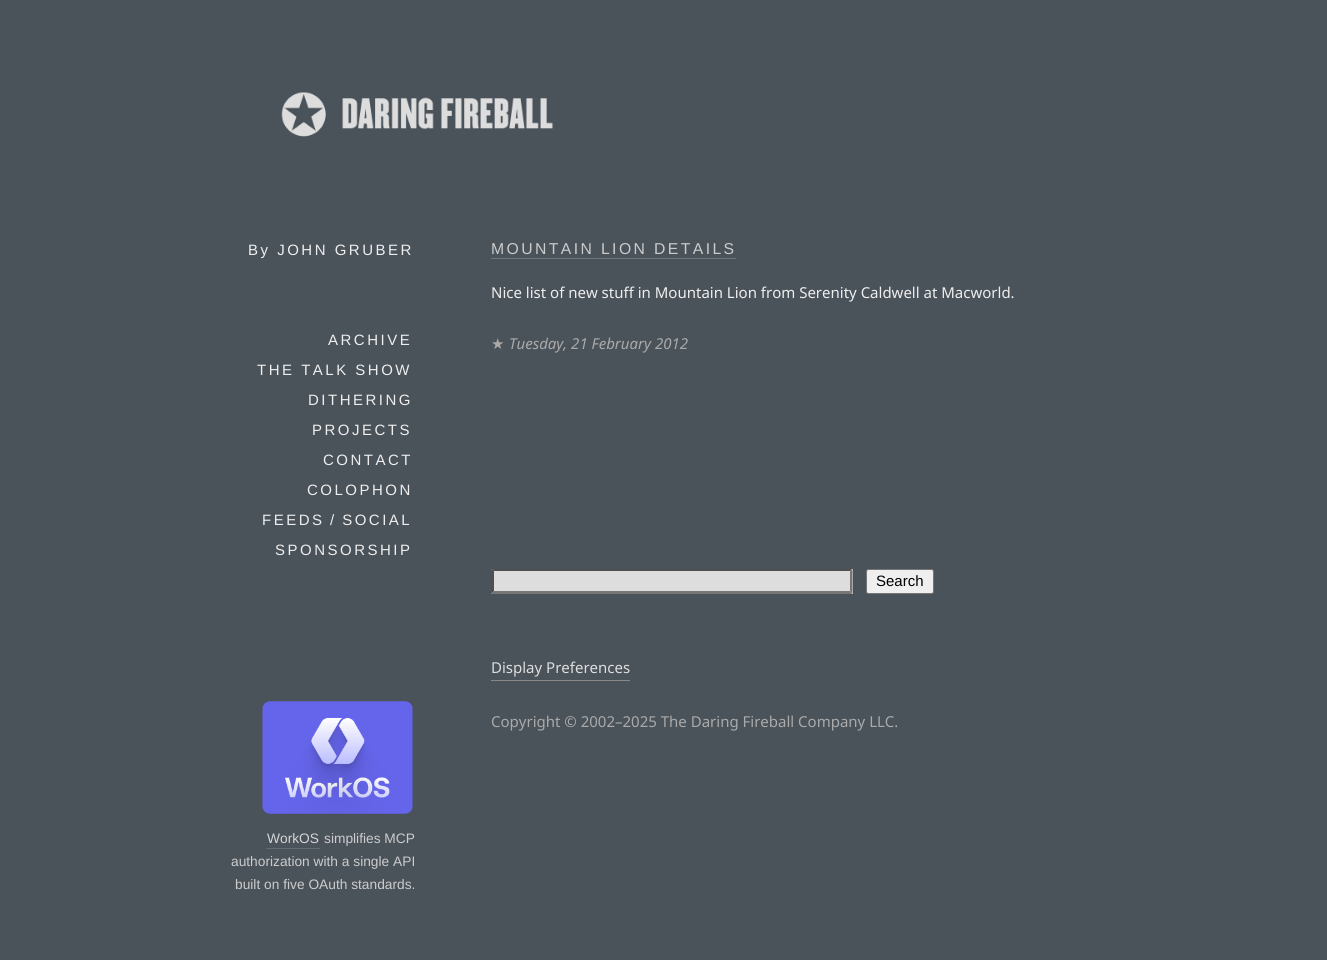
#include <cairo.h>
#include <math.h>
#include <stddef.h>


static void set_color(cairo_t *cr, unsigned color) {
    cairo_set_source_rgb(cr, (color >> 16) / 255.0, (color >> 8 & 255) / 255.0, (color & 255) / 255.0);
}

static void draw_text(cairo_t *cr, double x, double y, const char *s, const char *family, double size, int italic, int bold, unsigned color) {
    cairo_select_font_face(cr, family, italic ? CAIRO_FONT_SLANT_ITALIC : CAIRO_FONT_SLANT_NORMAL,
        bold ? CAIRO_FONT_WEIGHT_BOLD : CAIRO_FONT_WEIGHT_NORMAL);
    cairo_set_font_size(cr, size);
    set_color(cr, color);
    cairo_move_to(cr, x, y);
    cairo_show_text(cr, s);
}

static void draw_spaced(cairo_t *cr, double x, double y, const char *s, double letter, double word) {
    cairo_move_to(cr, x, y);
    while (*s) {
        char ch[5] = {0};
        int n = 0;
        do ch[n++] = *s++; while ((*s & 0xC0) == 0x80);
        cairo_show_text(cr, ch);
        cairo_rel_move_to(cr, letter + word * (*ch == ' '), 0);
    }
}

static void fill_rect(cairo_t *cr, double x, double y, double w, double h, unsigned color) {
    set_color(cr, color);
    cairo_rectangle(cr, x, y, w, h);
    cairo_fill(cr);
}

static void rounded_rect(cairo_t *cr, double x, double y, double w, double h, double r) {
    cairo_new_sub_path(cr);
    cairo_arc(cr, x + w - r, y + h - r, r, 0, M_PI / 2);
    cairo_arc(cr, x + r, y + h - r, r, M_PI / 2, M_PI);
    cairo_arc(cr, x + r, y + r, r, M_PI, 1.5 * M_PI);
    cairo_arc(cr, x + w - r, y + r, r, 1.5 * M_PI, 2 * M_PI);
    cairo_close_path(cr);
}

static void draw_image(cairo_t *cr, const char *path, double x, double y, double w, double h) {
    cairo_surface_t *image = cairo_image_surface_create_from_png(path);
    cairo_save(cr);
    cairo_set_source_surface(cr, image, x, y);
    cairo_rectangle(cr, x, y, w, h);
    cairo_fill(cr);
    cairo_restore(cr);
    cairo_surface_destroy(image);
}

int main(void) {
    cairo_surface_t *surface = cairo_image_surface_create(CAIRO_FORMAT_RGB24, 1327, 960);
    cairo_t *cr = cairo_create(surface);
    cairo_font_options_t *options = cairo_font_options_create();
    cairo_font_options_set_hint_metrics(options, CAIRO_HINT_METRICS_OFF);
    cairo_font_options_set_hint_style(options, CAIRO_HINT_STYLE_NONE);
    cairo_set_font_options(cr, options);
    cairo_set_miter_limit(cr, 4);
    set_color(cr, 0x4A525A);
    cairo_paint(cr);
    draw_image(cr, "assets/img1.png", 281, 92, 272, 45);
    cairo_select_font_face(cr, "Liberation Sans", CAIRO_FONT_SLANT_NORMAL, CAIRO_FONT_WEIGHT_NORMAL);
    cairo_set_font_size(cr, 15);
    set_color(cr, 0xEEEEEE);
    draw_spaced(cr, 248, 255, "By JOHN GRUBER", 2.5, 0);
    draw_spaced(cr, 328, 345, "ARCHIVE", 2.5, 0);
    draw_spaced(cr, 257, 375, "THE TALK SHOW", 2.5, 0);
    draw_spaced(cr, 308, 405, "DITHERING", 2.5, 0);
    draw_spaced(cr, 312, 435, "PROJECTS", 2.5, 0);
    draw_spaced(cr, 323, 465, "CONTACT", 2.5, 0);
    draw_spaced(cr, 307, 495, "COLOPHON", 2.5, 0);
    draw_spaced(cr, 262, 525, "FEEDS / SOCIAL", 2.5, 0);
    draw_spaced(cr, 275, 555, "SPONSORSHIP", 2.5, 0);
    draw_image(cr, "assets/img2.png", 262, 701, 151, 113);
    draw_text(cr, 267, 843, "WorkOS", "Liberation Sans", 13.75, 0, 0, 0xD5D5D5);
    fill_rect(cr, 266, 848, 54, 1, 0x626A73);
    draw_text(cr, 324, 843, "simplifies MCP", "Liberation Sans", 13.75, 0, 0, 0xCCCCCC);
    draw_text(cr, 231, 866, "authorization with a single API", "Liberation Sans", 13.75, 0, 0, 0xCCCCCC);
    draw_text(cr, 235, 889, "built on five OAuth standards.", "Liberation Sans", 13.75, 0, 0, 0xCCCCCC);
    cairo_set_font_size(cr, 15.75);
    draw_spaced(cr, 491, 254, "MOUNTAIN LION DETAILS", 2.4, 0);
    fill_rect(cr, 491, 258, 245, 1, 0x72767A);
    draw_text(cr, 491, 298, "Nice list of new stuff in Mountain Lion from Serenity Caldwell at Macworld.", "Noto Sans", 15, 0, 0, 0xEEEEEE);
    draw_text(cr, 491, 349, "★", "DejaVu Sans", 15, 0, 0, 0xAAAAAA);
    draw_text(cr, 509, 349, "Tuesday, 21 February 2012", "Noto Sans", 15, 1, 0, 0xAAAAAA);
    fill_rect(cr, 491, 569, 362, 25, 0xDDDDDD);
    set_color(cr, 0x4F4F4F);
    cairo_new_path(cr);
    cairo_move_to(cr, 491, 569);
    cairo_line_to(cr, 852, 569);
    cairo_line_to(cr, 850, 571);
    cairo_line_to(cr, 494, 571);
    cairo_close_path(cr);
    cairo_fill(cr);
    set_color(cr, 0x767676);
    cairo_new_path(cr);
    cairo_move_to(cr, 852.5, 569);
    cairo_line_to(cr, 852.5, 594);
    cairo_line_to(cr, 850, 591);
    cairo_line_to(cr, 850, 571);
    cairo_close_path(cr);
    cairo_fill(cr);
    cairo_new_path(cr);
    cairo_move_to(cr, 852, 594);
    cairo_line_to(cr, 491, 594);
    cairo_line_to(cr, 494, 591);
    cairo_line_to(cr, 850, 591);
    cairo_close_path(cr);
    cairo_fill(cr);
    set_color(cr, 0x4F4F4F);
    cairo_new_path(cr);
    cairo_move_to(cr, 491, 594);
    cairo_line_to(cr, 491, 569);
    cairo_line_to(cr, 494, 571);
    cairo_line_to(cr, 494, 591);
    cairo_close_path(cr);
    cairo_fill(cr);
    set_color(cr, 0xEFEFEF);
    rounded_rect(cr, 866.5, 569.5, 67, 24, 2);
    cairo_fill_preserve(cr);
    set_color(cr, 0x767676);
    cairo_set_line_width(cr, 1);
    cairo_stroke(cr);
    draw_text(cr, 876, 586, "Search", "Liberation Sans", 15, 0, 0, 0x000000);
    draw_text(cr, 491, 673, "Display Preferences", "Noto Sans", 15, 0, 0, 0xDDDDDD);
    fill_rect(cr, 491, 680, 139, 1, 0x888888);
    draw_text(cr, 491, 727, "Copyright © 2002–2025 The Daring Fireball Company LLC.", "Noto Sans", 15, 0, 0, 0xAAAAAA);
    cairo_surface_write_to_png(surface, "output.png");
    cairo_font_options_destroy(options);
    cairo_destroy(cr);
    cairo_surface_destroy(surface);
    return 0;
}
